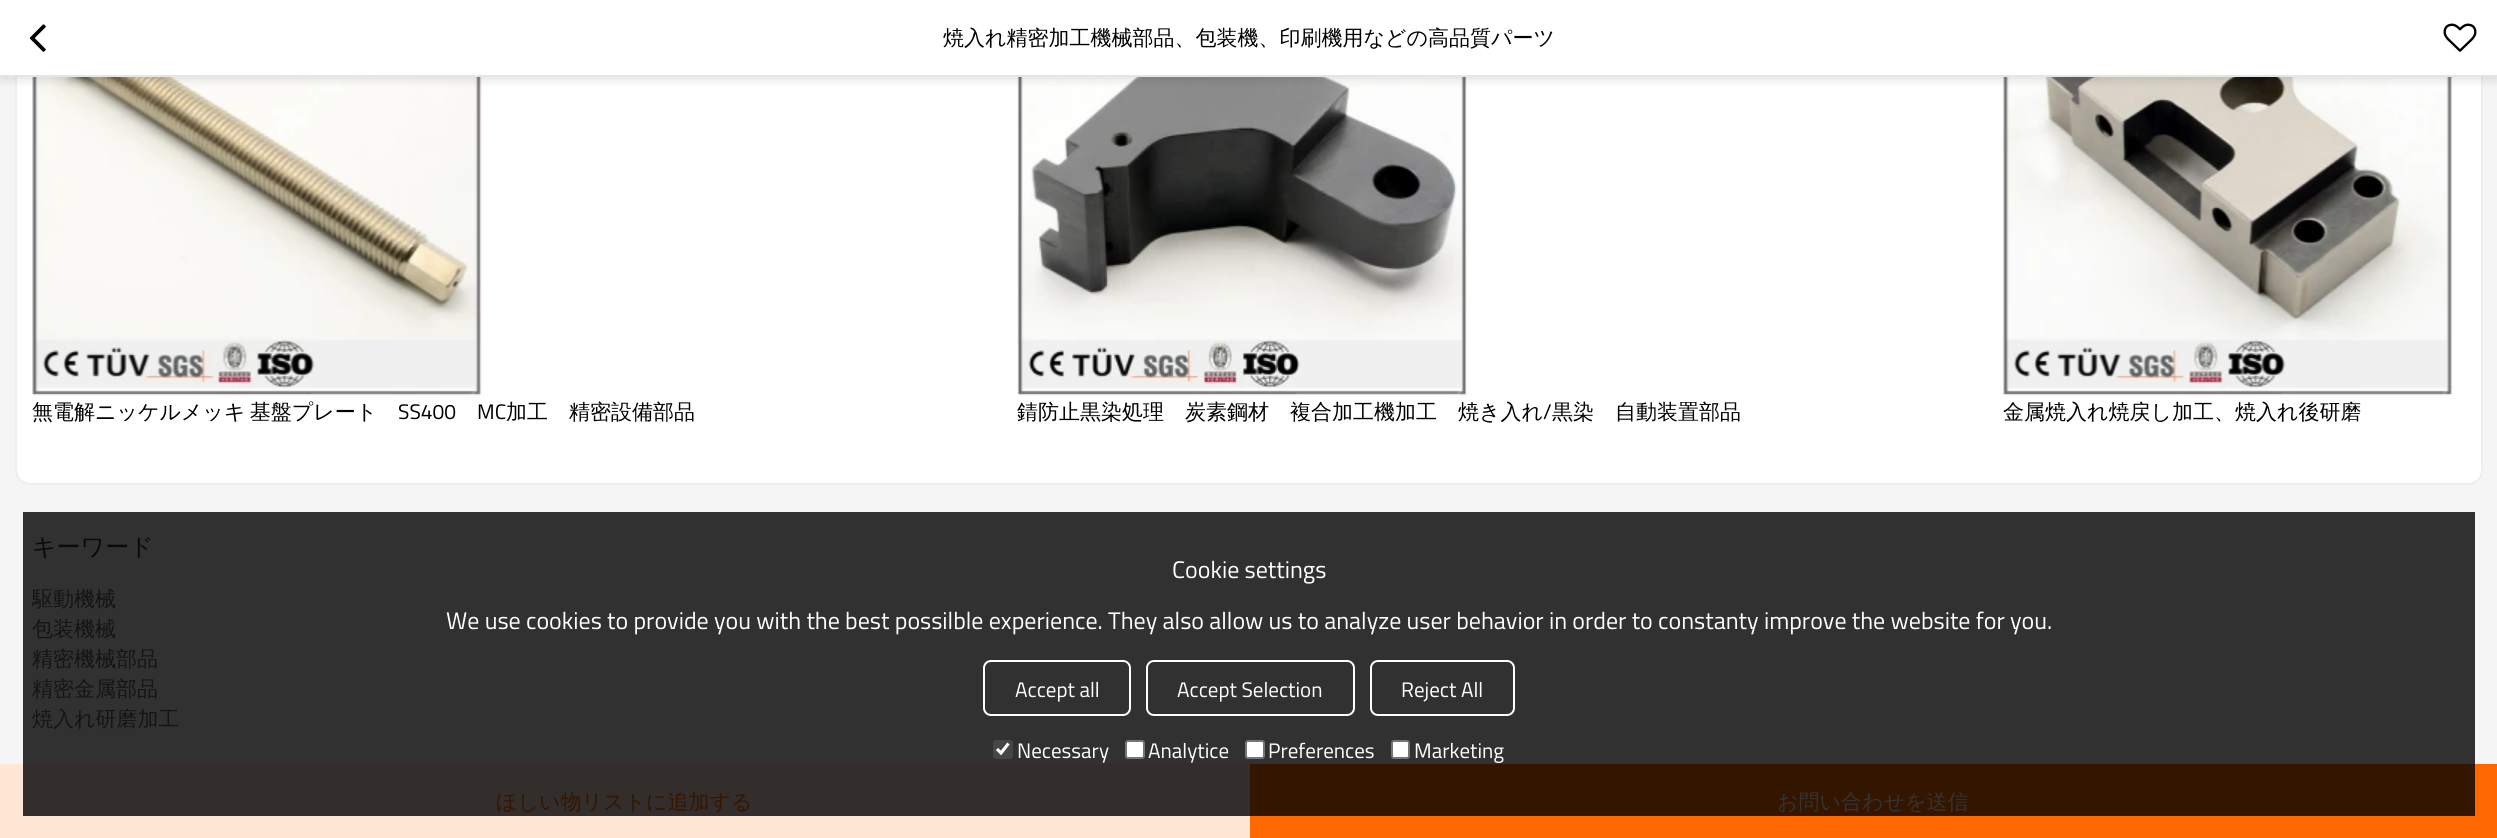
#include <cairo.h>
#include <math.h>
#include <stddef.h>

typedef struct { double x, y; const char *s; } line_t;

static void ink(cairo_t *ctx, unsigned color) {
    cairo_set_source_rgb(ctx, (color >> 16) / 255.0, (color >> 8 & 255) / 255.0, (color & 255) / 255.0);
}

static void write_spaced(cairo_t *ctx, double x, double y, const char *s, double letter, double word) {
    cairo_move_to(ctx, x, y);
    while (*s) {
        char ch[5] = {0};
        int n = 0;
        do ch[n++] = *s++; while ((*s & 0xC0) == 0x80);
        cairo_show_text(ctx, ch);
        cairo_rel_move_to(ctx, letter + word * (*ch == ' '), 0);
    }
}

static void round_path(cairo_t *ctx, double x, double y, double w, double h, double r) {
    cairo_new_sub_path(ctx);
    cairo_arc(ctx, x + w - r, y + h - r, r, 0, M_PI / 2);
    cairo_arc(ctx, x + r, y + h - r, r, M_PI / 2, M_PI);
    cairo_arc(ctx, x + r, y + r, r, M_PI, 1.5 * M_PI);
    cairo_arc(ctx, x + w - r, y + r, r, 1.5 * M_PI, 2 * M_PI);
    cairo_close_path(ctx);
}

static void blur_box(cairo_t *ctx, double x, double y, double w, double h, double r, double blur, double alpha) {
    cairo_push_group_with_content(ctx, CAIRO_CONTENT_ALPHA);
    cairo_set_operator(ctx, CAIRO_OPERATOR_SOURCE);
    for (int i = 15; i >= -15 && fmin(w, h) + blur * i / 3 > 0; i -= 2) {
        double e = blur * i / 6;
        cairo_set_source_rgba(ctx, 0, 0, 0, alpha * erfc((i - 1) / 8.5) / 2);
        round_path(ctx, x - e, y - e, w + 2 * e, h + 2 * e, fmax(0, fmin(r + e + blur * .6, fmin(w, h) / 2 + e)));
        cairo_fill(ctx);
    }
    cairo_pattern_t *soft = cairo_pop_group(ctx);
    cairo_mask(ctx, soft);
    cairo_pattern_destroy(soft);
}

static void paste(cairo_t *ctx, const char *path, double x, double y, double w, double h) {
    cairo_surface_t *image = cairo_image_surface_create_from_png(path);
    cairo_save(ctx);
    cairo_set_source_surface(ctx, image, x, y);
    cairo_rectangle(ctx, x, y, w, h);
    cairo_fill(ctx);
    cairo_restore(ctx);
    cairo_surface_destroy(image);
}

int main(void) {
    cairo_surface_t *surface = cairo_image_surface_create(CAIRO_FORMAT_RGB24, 2497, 838);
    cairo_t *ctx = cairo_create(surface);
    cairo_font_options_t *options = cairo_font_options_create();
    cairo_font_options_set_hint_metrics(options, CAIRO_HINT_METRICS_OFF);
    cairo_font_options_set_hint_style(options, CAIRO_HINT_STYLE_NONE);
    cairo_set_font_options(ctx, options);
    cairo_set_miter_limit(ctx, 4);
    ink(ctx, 0xF5F5F5);
    cairo_paint(ctx);
    ink(ctx, 0x313131);
    cairo_rectangle(ctx, 23, 512, 2452, 252);
    cairo_fill(ctx);
    ink(ctx, 0xFFFFFF);
    round_path(ctx, 16, -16, 2466, 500, 14);
    cairo_fill_preserve(ctx);
    ink(ctx, 0xEEEEEE);
    cairo_stroke(ctx);
    paste(ctx, "media/3.png", 32, 77, 450, 319);
    paste(ctx, "media/4.png", 1017, 77, 450, 319);
    paste(ctx, "media/5.png", 2003, 77, 450, 319);
    ink(ctx, 0x000000);
    blur_box(ctx, 0, 5, 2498, 76, 0, 4, 0.1);
    ink(ctx, 0xFFFFFF);
    cairo_rectangle(ctx, 0, 0, 2497, 75);
    cairo_fill(ctx);
    ink(ctx, 0xE5E5E5);
    cairo_rectangle(ctx, 0, 75, 2497, 2);
    cairo_fill(ctx);
    paste(ctx, "media/1.png", 29, 24, 17, 28);
    cairo_select_font_face(ctx, "WenQuanYi Zen Hei Medium", CAIRO_FONT_SLANT_NORMAL, CAIRO_FONT_WEIGHT_NORMAL);
    cairo_set_font_size(ctx, 21);
    ink(ctx, 0x000000);
    cairo_move_to(ctx, 943, 45);
    cairo_show_text(ctx, "焼入れ精密加工機械部品、包装機、印刷機用などの高品質パーツ");
    paste(ctx, "media/2.png", 2443, 23, 34, 29);
    write_spaced(ctx, 32, 419, "無電解ニッケルメッキ 基盤プレート", 0, -2);
    cairo_select_font_face(ctx, "Titillium Web", CAIRO_FONT_SLANT_NORMAL, CAIRO_FONT_WEIGHT_NORMAL);
    cairo_move_to(ctx, 398, 419);
    cairo_show_text(ctx, "SS400");
    cairo_move_to(ctx, 477, 419);
    cairo_show_text(ctx, "MC");
    cairo_select_font_face(ctx, "WenQuanYi Zen Hei Medium", CAIRO_FONT_SLANT_NORMAL, CAIRO_FONT_WEIGHT_NORMAL);
    cairo_move_to(ctx, 506, 419);
    cairo_show_text(ctx, "加工　精密設備部品");
    cairo_move_to(ctx, 1017, 419);
    cairo_show_text(ctx, "錆防止黒染処理　炭素鋼材　複合加工機加工　焼き入れ");
    cairo_select_font_face(ctx, "Titillium Web", CAIRO_FONT_SLANT_NORMAL, CAIRO_FONT_WEIGHT_NORMAL);
    cairo_move_to(ctx, 1543, 419);
    cairo_show_text(ctx, "/");
    cairo_select_font_face(ctx, "WenQuanYi Zen Hei Medium", CAIRO_FONT_SLANT_NORMAL, CAIRO_FONT_WEIGHT_NORMAL);
    cairo_move_to(ctx, 1552, 419);
    cairo_show_text(ctx, "黒染　自動装置部品");
    cairo_move_to(ctx, 2003, 419);
    cairo_show_text(ctx, "金属焼入れ焼戻し加工、焼入れ後研磨");
    cairo_set_font_size(ctx, 24);
    ink(ctx, 0x0A0A0A);
    cairo_move_to(ctx, 32, 555);
    cairo_show_text(ctx, "キーワード");
    cairo_save(ctx);
    cairo_rectangle(ctx, 32, 584, 2434, 30);
    cairo_clip(ctx);
    cairo_set_font_size(ctx, 21);
    ink(ctx, 0x141414);
    cairo_move_to(ctx, 32, 606);
    cairo_show_text(ctx, "駆動機械");
    cairo_restore(ctx);
    cairo_set_font_size(ctx, 21);
    ink(ctx, 0x141414);
    {
        static const line_t items[] = {
            {32, 636, "包装機械"},
            {32, 666, "精密機械部品"},
            {32, 696, "精密金属部品"},
            {32, 726, "焼入れ研磨加工"},
        };
        for (size_t i = 0; i < sizeof items / sizeof *items; i++) {
            cairo_move_to(ctx, items[i].x, items[i].y);
            cairo_show_text(ctx, items[i].s);
        }
    }
    ink(ctx, 0xFFE7D6);
    cairo_rectangle(ctx, 0, 764, 1250, 74);
    cairo_fill(ctx);
    ink(ctx, 0x332E2B);
    cairo_rectangle(ctx, 23, 764, 1227, 52);
    cairo_fill(ctx);
    ink(ctx, 0x331500);
    cairo_move_to(ctx, 496, 809);
    cairo_show_text(ctx, "ほしい物リストに追加する");
    ink(ctx, 0xFF6700);
    cairo_rectangle(ctx, 1250, 764, 1247, 74);
    cairo_fill(ctx);
    ink(ctx, 0x331500);
    cairo_rectangle(ctx, 1250, 764, 1225, 52);
    cairo_fill(ctx);
    ink(ctx, 0x333333);
    cairo_move_to(ctx, 1777, 809);
    cairo_show_text(ctx, "お問い合わせを送信");
    cairo_select_font_face(ctx, "Titillium Web", CAIRO_FONT_SLANT_NORMAL, CAIRO_FONT_WEIGHT_NORMAL);
    cairo_set_font_size(ctx, 24);
    ink(ctx, 0xFFFFFF);
    cairo_move_to(ctx, 1172, 578);
    cairo_show_text(ctx, "Cookie settings");
    cairo_move_to(ctx, 446, 629);
    cairo_show_text(ctx, "We use cookies to provide you with the best possilble experience. They also allow us to analyze user behavior in order to constanty improve the website for you.");
    round_path(ctx, 984, 661, 146, 54, 7);
    cairo_stroke(ctx);
    cairo_set_font_size(ctx, 21);
    cairo_move_to(ctx, 1015, 697);
    cairo_show_text(ctx, "Accept all");
    round_path(ctx, 1147, 661, 207, 54, 7);
    cairo_stroke(ctx);
    cairo_move_to(ctx, 1177, 697);
    cairo_show_text(ctx, "Accept Selection");
    round_path(ctx, 1371, 661, 143, 54, 7);
    cairo_stroke(ctx);
    cairo_move_to(ctx, 1401, 697);
    cairo_show_text(ctx, "Reject All");
    ink(ctx, 0x464646);
    round_path(ctx, 993, 740, 20, 19, 3);
    cairo_fill(ctx);
    cairo_new_path(ctx);
    cairo_move_to(ctx, 997, 749);
    cairo_line_to(ctx, 1001, 753);
    cairo_line_to(ctx, 1008.5, 743.5);
    ink(ctx, 0xFFFFFF);
    cairo_set_line_width(ctx, 3.1);
    cairo_stroke(ctx);
    cairo_move_to(ctx, 1017, 758);
    cairo_show_text(ctx, "Necessary");
    round_path(ctx, 1126, 741, 18, 17, 2);
    cairo_fill_preserve(ctx);
    ink(ctx, 0x767676);
    cairo_set_line_width(ctx, 2);
    cairo_stroke(ctx);
    ink(ctx, 0xFFFFFF);
    cairo_move_to(ctx, 1148, 758);
    cairo_show_text(ctx, "Analytice");
    round_path(ctx, 1246, 741, 18, 17, 2);
    cairo_fill_preserve(ctx);
    ink(ctx, 0x767676);
    cairo_stroke(ctx);
    ink(ctx, 0xFFFFFF);
    cairo_move_to(ctx, 1268, 758);
    cairo_show_text(ctx, "Preferences");
    round_path(ctx, 1392, 741, 17, 17, 2);
    cairo_fill_preserve(ctx);
    ink(ctx, 0x767676);
    cairo_stroke(ctx);
    ink(ctx, 0xFFFFFF);
    cairo_move_to(ctx, 1414, 758);
    cairo_show_text(ctx, "Marketing");
    cairo_surface_write_to_png(surface, "image.png");
    cairo_font_options_destroy(options);
    cairo_destroy(ctx);
    cairo_surface_destroy(surface);
    return 0;
}
